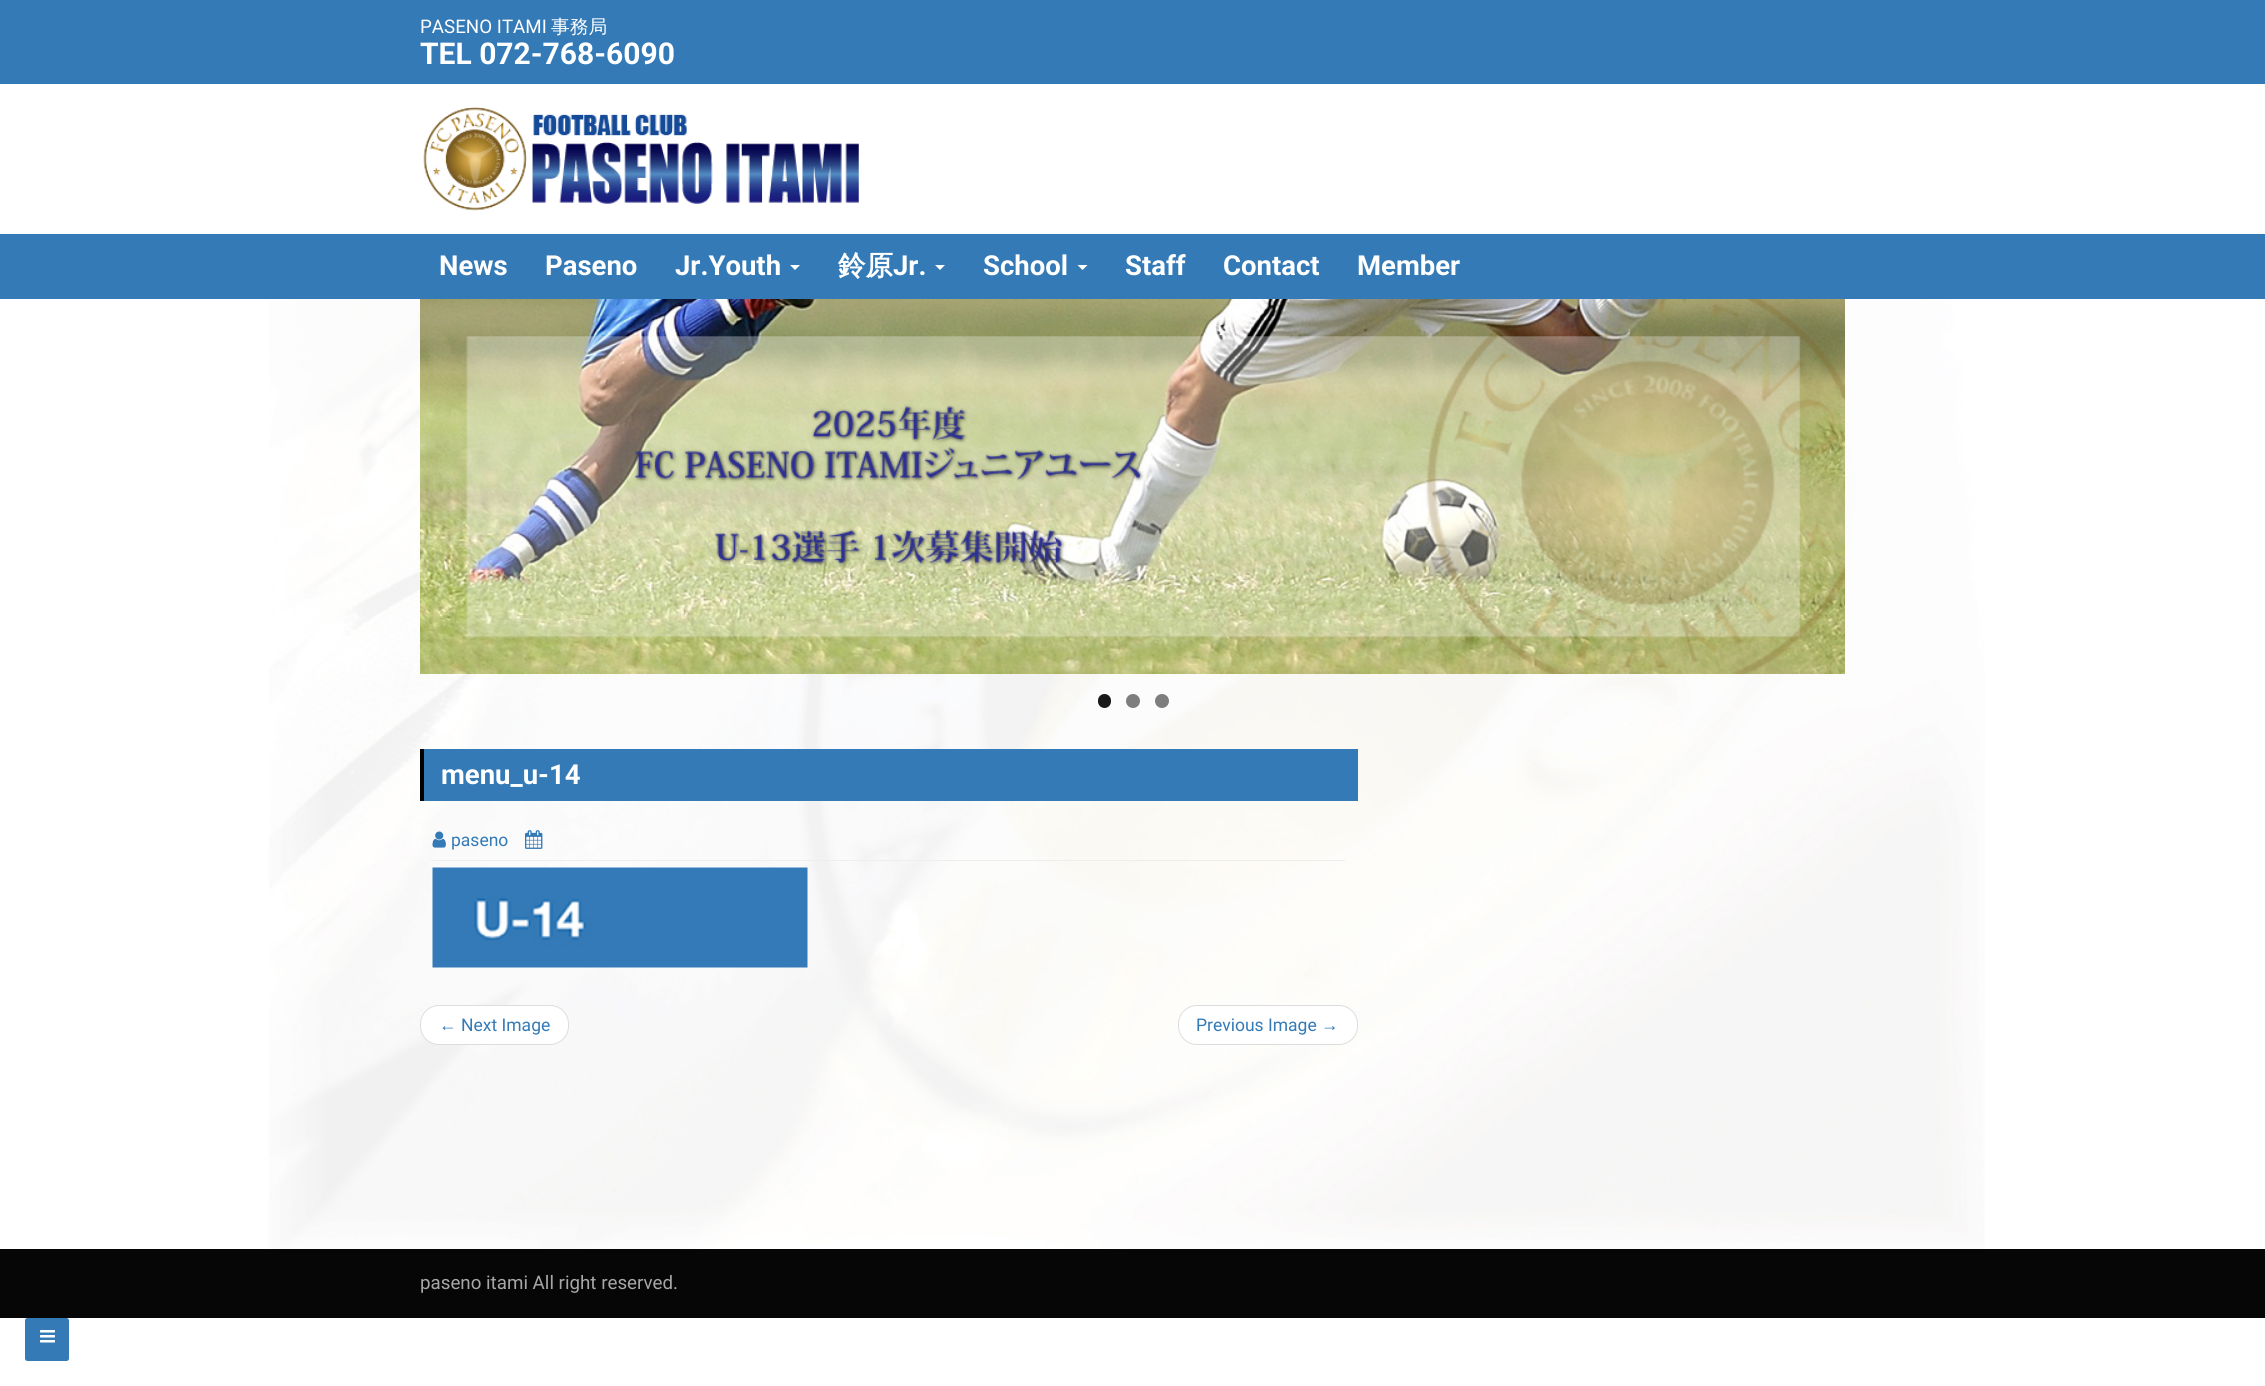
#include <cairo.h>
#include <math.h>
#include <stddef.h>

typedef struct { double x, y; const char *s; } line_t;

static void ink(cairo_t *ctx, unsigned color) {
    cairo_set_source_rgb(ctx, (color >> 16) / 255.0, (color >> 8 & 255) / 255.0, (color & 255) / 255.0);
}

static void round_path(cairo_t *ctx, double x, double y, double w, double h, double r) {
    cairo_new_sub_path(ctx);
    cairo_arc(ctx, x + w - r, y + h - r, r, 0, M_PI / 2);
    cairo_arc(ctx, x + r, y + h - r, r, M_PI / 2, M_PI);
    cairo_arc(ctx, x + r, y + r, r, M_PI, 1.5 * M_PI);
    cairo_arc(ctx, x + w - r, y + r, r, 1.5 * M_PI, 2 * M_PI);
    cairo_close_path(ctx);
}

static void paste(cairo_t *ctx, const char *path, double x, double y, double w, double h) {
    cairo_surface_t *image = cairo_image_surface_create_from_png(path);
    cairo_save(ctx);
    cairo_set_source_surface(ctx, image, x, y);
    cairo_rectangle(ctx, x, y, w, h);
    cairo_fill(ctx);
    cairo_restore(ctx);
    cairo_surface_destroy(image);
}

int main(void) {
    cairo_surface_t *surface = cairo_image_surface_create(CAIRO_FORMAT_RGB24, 2265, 1386);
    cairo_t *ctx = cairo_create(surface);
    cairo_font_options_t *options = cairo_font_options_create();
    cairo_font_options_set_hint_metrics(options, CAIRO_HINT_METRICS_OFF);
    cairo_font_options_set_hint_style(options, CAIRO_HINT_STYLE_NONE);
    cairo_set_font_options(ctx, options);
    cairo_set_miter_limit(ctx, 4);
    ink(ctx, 0xFFFFFF);
    cairo_paint(ctx);
    paste(ctx, "media/1.png", 269, 299, 1716, 950);
    ink(ctx, 0x337AB7);
    cairo_rectangle(ctx, 0, 0, 2265, 84);
    cairo_fill(ctx);
    cairo_select_font_face(ctx, "Roboto", CAIRO_FONT_SLANT_NORMAL, CAIRO_FONT_WEIGHT_NORMAL);
    cairo_set_font_size(ctx, 18.75);
    ink(ctx, 0xFFFFFF);
    cairo_move_to(ctx, 420, 33);
    cairo_show_text(ctx, "PASENO ITAMI");
    cairo_select_font_face(ctx, "WenQuanYi Zen Hei Medium", CAIRO_FONT_SLANT_NORMAL, CAIRO_FONT_WEIGHT_NORMAL);
    cairo_move_to(ctx, 551, 33);
    cairo_show_text(ctx, "事務局");
    cairo_select_font_face(ctx, "Roboto", CAIRO_FONT_SLANT_NORMAL, CAIRO_FONT_WEIGHT_BOLD);
    cairo_set_font_size(ctx, 30);
    cairo_move_to(ctx, 420, 64);
    cairo_show_text(ctx, "TEL 072-768-6090");
    paste(ctx, "media/2.png", 423, 107, 436, 104);
    ink(ctx, 0x337AB7);
    cairo_rectangle(ctx, 0, 234, 2265, 65);
    cairo_fill(ctx);
    cairo_set_font_size(ctx, 27.5);
    ink(ctx, 0xFFFFFF);
    {
        static const line_t items[] = {
            {439, 275, "News"},
            {545, 275, "Paseno"},
            {675, 275, "Jr.Youth"},
        };
        for (size_t i = 0; i < sizeof items / sizeof *items; i++) {
            cairo_move_to(ctx, items[i].x, items[i].y);
            cairo_show_text(ctx, items[i].s);
        }
    }
    cairo_new_path(ctx);
    cairo_move_to(ctx, 790, 265);
    cairo_line_to(ctx, 800, 265);
    cairo_line_to(ctx, 795, 270);
    cairo_close_path(ctx);
    cairo_fill(ctx);
    cairo_select_font_face(ctx, "WenQuanYi Zen Hei", CAIRO_FONT_SLANT_NORMAL, CAIRO_FONT_WEIGHT_BOLD);
    cairo_move_to(ctx, 838, 275);
    cairo_show_text(ctx, "鈴原");
    cairo_select_font_face(ctx, "Roboto", CAIRO_FONT_SLANT_NORMAL, CAIRO_FONT_WEIGHT_BOLD);
    cairo_move_to(ctx, 893, 275);
    cairo_show_text(ctx, "Jr.");
    cairo_new_path(ctx);
    cairo_move_to(ctx, 935, 265);
    cairo_line_to(ctx, 945, 265);
    cairo_line_to(ctx, 940, 270);
    cairo_close_path(ctx);
    cairo_fill(ctx);
    cairo_move_to(ctx, 983, 275);
    cairo_show_text(ctx, "School");
    cairo_new_path(ctx);
    cairo_move_to(ctx, 1077.5, 265);
    cairo_line_to(ctx, 1087.5, 265);
    cairo_line_to(ctx, 1082.5, 270);
    cairo_close_path(ctx);
    cairo_fill(ctx);
    {
        static const line_t items[] = {
            {1125, 275, "Staff"},
            {1223, 275, "Contact"},
            {1357, 275, "Member"},
        };
        for (size_t i = 0; i < sizeof items / sizeof *items; i++) {
            cairo_move_to(ctx, items[i].x, items[i].y);
            cairo_show_text(ctx, items[i].s);
        }
    }
    paste(ctx, "media/3.png", 420, 299, 1425, 375);
    ink(ctx, 0x191919);
    round_path(ctx, 1098, 694, 13, 14, 6.5);
    cairo_fill(ctx);
    ink(ctx, 0x7E7E7E);
    cairo_arc(ctx, 1133, 701, 7, 0, 2 * M_PI);
    cairo_fill(ctx);
    cairo_arc(ctx, 1162, 701, 7, 0, 2 * M_PI);
    cairo_fill(ctx);
    ink(ctx, 0x337AB7);
    cairo_rectangle(ctx, 424, 749, 934, 52);
    cairo_fill(ctx);
    ink(ctx, 0x000000);
    cairo_rectangle(ctx, 420, 749, 4, 52);
    cairo_fill(ctx);
    ink(ctx, 0xFFFFFF);
    cairo_move_to(ctx, 441, 784);
    cairo_show_text(ctx, "menu_u-14");
    paste(ctx, "media/4.png", 432, 831, 14, 17);
    cairo_select_font_face(ctx, "Roboto", CAIRO_FONT_SLANT_NORMAL, CAIRO_FONT_WEIGHT_NORMAL);
    cairo_set_font_size(ctx, 17.5);
    ink(ctx, 0x337AB7);
    cairo_move_to(ctx, 451, 846);
    cairo_show_text(ctx, "paseno");
    paste(ctx, "media/5.png", 525, 830, 18, 19);
    ink(ctx, 0xEEEEEE);
    cairo_rectangle(ctx, 433, 860, 912, 1);
    cairo_fill(ctx);
    paste(ctx, "media/6.png", 432, 867, 376, 101);
    ink(ctx, 0xFFFFFF);
    round_path(ctx, 420.5, 1005.5, 148, 39, 18.5);
    cairo_fill_preserve(ctx);
    ink(ctx, 0xDDDDDD);
    cairo_set_line_width(ctx, 1);
    cairo_stroke(ctx);
    cairo_select_font_face(ctx, "Liberation Sans", CAIRO_FONT_SLANT_NORMAL, CAIRO_FONT_WEIGHT_NORMAL);
    ink(ctx, 0x337AB7);
    cairo_move_to(ctx, 439, 1031);
    cairo_show_text(ctx, "←");
    cairo_select_font_face(ctx, "Roboto", CAIRO_FONT_SLANT_NORMAL, CAIRO_FONT_WEIGHT_NORMAL);
    cairo_move_to(ctx, 461, 1031);
    cairo_show_text(ctx, "Next Image");
    ink(ctx, 0xFFFFFF);
    round_path(ctx, 1178.5, 1005.5, 179, 39, 18.5);
    cairo_fill_preserve(ctx);
    ink(ctx, 0xDDDDDD);
    cairo_stroke(ctx);
    ink(ctx, 0x337AB7);
    cairo_move_to(ctx, 1196, 1031);
    cairo_show_text(ctx, "Previous Image");
    cairo_select_font_face(ctx, "Liberation Sans", CAIRO_FONT_SLANT_NORMAL, CAIRO_FONT_WEIGHT_NORMAL);
    cairo_move_to(ctx, 1321, 1031);
    cairo_show_text(ctx, "→");
    ink(ctx, 0x060606);
    cairo_rectangle(ctx, 0, 1249, 2265, 69);
    cairo_fill(ctx);
    cairo_select_font_face(ctx, "Roboto", CAIRO_FONT_SLANT_NORMAL, CAIRO_FONT_WEIGHT_NORMAL);
    cairo_set_font_size(ctx, 18.75);
    ink(ctx, 0xA7A7A7);
    cairo_move_to(ctx, 420, 1289);
    cairo_show_text(ctx, "paseno itami All right reserved.");
    ink(ctx, 0x337AB7);
    round_path(ctx, 25, 1318, 44, 43, 2.5);
    cairo_fill(ctx);
    paste(ctx, "media/7.png", 40, 1330, 15, 13);
    cairo_surface_write_to_png(surface, "image.png");
    cairo_font_options_destroy(options);
    cairo_destroy(ctx);
    cairo_surface_destroy(surface);
    return 0;
}
